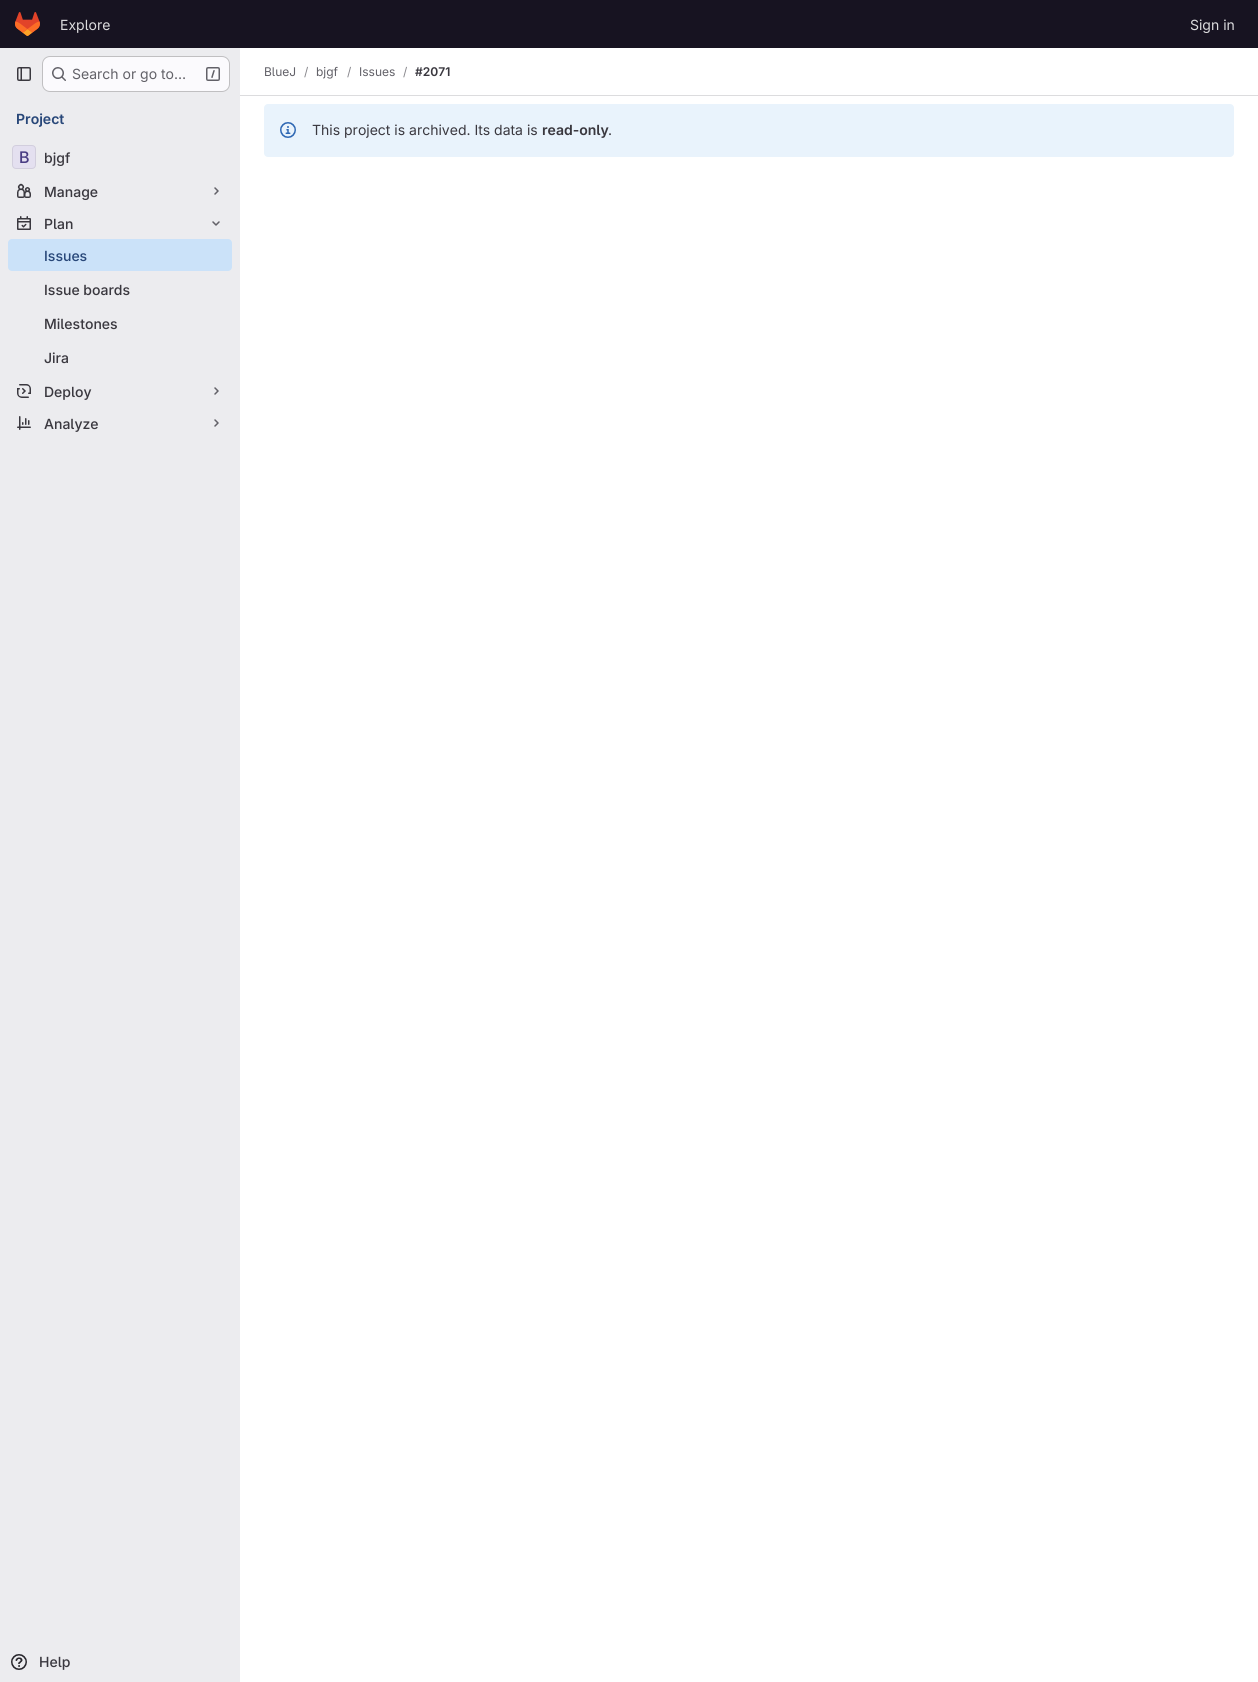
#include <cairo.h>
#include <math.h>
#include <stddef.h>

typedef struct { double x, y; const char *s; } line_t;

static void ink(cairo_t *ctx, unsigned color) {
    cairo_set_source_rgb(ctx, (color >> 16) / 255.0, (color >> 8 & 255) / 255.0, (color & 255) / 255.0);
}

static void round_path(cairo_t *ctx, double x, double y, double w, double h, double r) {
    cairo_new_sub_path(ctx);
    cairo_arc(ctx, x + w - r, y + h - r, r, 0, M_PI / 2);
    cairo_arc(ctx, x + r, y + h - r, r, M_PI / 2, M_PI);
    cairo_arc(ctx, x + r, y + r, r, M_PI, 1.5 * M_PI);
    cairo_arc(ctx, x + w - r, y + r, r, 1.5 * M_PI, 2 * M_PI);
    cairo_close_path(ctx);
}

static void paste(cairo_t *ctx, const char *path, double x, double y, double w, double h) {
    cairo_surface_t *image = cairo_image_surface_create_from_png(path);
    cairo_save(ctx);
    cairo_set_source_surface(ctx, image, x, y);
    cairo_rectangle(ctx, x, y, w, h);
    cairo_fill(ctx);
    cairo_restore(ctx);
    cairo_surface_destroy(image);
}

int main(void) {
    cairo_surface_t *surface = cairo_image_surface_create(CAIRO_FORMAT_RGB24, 1258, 1682);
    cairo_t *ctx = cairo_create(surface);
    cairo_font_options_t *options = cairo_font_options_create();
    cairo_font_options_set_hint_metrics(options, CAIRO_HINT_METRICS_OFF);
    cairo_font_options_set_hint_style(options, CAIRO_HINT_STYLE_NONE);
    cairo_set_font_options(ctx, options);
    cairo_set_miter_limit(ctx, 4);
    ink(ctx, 0xFFFFFF);
    cairo_paint(ctx);
    ink(ctx, 0x171321);
    cairo_rectangle(ctx, 0, 0, 1258, 48);
    cairo_fill(ctx);
    paste(ctx, "media/1.png", 15, 12, 25, 24);
    cairo_select_font_face(ctx, "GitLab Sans", CAIRO_FONT_SLANT_NORMAL, CAIRO_FONT_WEIGHT_NORMAL);
    cairo_set_font_size(ctx, 14);
    ink(ctx, 0xDCDCDE);
    cairo_move_to(ctx, 60, 30);
    cairo_show_text(ctx, "Explore");
    cairo_move_to(ctx, 1190, 30);
    cairo_show_text(ctx, "Sign in");
    ink(ctx, 0xECECEF);
    cairo_rectangle(ctx, 0, 48, 240, 1634);
    cairo_fill(ctx);
    paste(ctx, "media/2.png", 17, 67, 14, 14);
    ink(ctx, 0xFBFAFD);
    round_path(ctx, 42, 56, 188, 36, 8);
    cairo_fill(ctx);
    round_path(ctx, 42.5, 56.5, 187, 35, 7.5);
    cairo_set_source_rgba(ctx, 0.02, 0.02, 0.024, 0.24);
    cairo_set_line_width(ctx, 1);
    cairo_stroke(ctx);
    paste(ctx, "media/3.png", 52, 67, 14, 14);
    ink(ctx, 0x626168);
    cairo_move_to(ctx, 72, 79);
    cairo_show_text(ctx, "Search or go to…");
    paste(ctx, "media/4.png", 206, 67, 14, 14);
    cairo_select_font_face(ctx, "GitLab Sans SemiBold", CAIRO_FONT_SLANT_NORMAL, CAIRO_FONT_WEIGHT_NORMAL);
    ink(ctx, 0x284779);
    cairo_move_to(ctx, 16, 124);
    cairo_show_text(ctx, "Project");
    ink(ctx, 0xE4E0F0);
    round_path(ctx, 12, 145, 24, 24, 4);
    cairo_fill(ctx);
    round_path(ctx, 12.5, 145.5, 23, 23, 3.5);
    cairo_set_source_rgba(ctx, 0.02, 0.02, 0.024, 0.08);
    cairo_stroke(ctx);
    cairo_select_font_face(ctx, "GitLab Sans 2 Medium", CAIRO_FONT_SLANT_NORMAL, CAIRO_FONT_WEIGHT_NORMAL);
    cairo_set_font_size(ctx, 16);
    ink(ctx, 0x493C83);
    cairo_move_to(ctx, 19, 163);
    cairo_show_text(ctx, "B");
    cairo_select_font_face(ctx, "GitLab Sans Medium", CAIRO_FONT_SLANT_NORMAL, CAIRO_FONT_WEIGHT_NORMAL);
    cairo_set_font_size(ctx, 14);
    ink(ctx, 0x3A383F);
    cairo_move_to(ctx, 44, 163);
    cairo_show_text(ctx, "bjgf");
    paste(ctx, "media/5.png", 17, 183, 14, 15);
    cairo_move_to(ctx, 44, 197);
    cairo_show_text(ctx, "Manage");
    cairo_new_path(ctx);
    cairo_move_to(ctx, 215, 188);
    cairo_line_to(ctx, 218, 191);
    cairo_line_to(ctx, 215, 194);
    ink(ctx, 0x626168);
    cairo_set_line_width(ctx, 1.5);
    cairo_set_line_cap(ctx, CAIRO_LINE_CAP_ROUND);
    cairo_set_line_join(ctx, CAIRO_LINE_JOIN_ROUND);
    cairo_stroke(ctx);
    paste(ctx, "media/6.png", 17, 216, 14, 14);
    ink(ctx, 0x3A383F);
    cairo_move_to(ctx, 44, 229);
    cairo_show_text(ctx, "Plan");
    cairo_new_path(ctx);
    cairo_move_to(ctx, 219, 222);
    cairo_line_to(ctx, 216, 225);
    cairo_line_to(ctx, 213, 222);
    ink(ctx, 0x626168);
    cairo_stroke(ctx);
    ink(ctx, 0xCBE2F9);
    round_path(ctx, 8, 239, 224, 32, 4);
    cairo_fill(ctx);
    ink(ctx, 0x284779);
    cairo_move_to(ctx, 44, 261);
    cairo_show_text(ctx, "Issues");
    ink(ctx, 0x3A383F);
    {
        static const line_t items[] = {
            {44, 295, "Issue boards"},
            {44, 329, "Milestones"},
            {44, 363, "Jira"},
        };
        for (size_t i = 0; i < sizeof items / sizeof *items; i++) {
            cairo_move_to(ctx, items[i].x, items[i].y);
            cairo_show_text(ctx, items[i].s);
        }
    }
    paste(ctx, "media/7.png", 17, 384, 14, 14);
    cairo_move_to(ctx, 44, 397);
    cairo_show_text(ctx, "Deploy");
    cairo_new_path(ctx);
    cairo_move_to(ctx, 215, 388);
    cairo_line_to(ctx, 218, 391);
    cairo_line_to(ctx, 215, 394);
    ink(ctx, 0x626168);
    cairo_stroke(ctx);
    paste(ctx, "media/8.png", 17, 416, 14, 14);
    ink(ctx, 0x3A383F);
    cairo_move_to(ctx, 44, 429);
    cairo_show_text(ctx, "Analyze");
    cairo_new_path(ctx);
    cairo_move_to(ctx, 215, 420);
    cairo_line_to(ctx, 218, 423);
    cairo_line_to(ctx, 215, 426);
    ink(ctx, 0x626168);
    cairo_stroke(ctx);
    paste(ctx, "media/9.png", 11, 1654, 16, 16);
    ink(ctx, 0x3A383F);
    cairo_move_to(ctx, 39, 1667);
    cairo_show_text(ctx, "Help");
    ink(ctx, 0xDCDCDE);
    cairo_rectangle(ctx, 240, 95, 1018, 1);
    cairo_fill(ctx);
    cairo_select_font_face(ctx, "GitLab Sans", CAIRO_FONT_SLANT_NORMAL, CAIRO_FONT_WEIGHT_NORMAL);
    cairo_set_font_size(ctx, 12);
    ink(ctx, 0x626168);
    cairo_move_to(ctx, 264, 76);
    cairo_show_text(ctx, "BlueJ");
    ink(ctx, 0x89888D);
    cairo_move_to(ctx, 304, 76);
    cairo_show_text(ctx, "/");
    ink(ctx, 0x626168);
    cairo_move_to(ctx, 316, 76);
    cairo_show_text(ctx, "bjgf");
    ink(ctx, 0x89888D);
    cairo_move_to(ctx, 347, 76);
    cairo_show_text(ctx, "/");
    ink(ctx, 0x626168);
    cairo_move_to(ctx, 359, 76);
    cairo_show_text(ctx, "Issues");
    ink(ctx, 0x89888D);
    cairo_move_to(ctx, 403, 76);
    cairo_show_text(ctx, "/");
    cairo_select_font_face(ctx, "GitLab Sans SemiBold", CAIRO_FONT_SLANT_NORMAL, CAIRO_FONT_WEIGHT_NORMAL);
    ink(ctx, 0x3A383F);
    cairo_move_to(ctx, 415, 76);
    cairo_show_text(ctx, "#2071");
    ink(ctx, 0xE9F3FC);
    round_path(ctx, 264, 104, 970, 53, 4);
    cairo_fill(ctx);
    paste(ctx, "media/10.png", 280, 122, 16, 16);
    cairo_select_font_face(ctx, "GitLab Sans", CAIRO_FONT_SLANT_NORMAL, CAIRO_FONT_WEIGHT_NORMAL);
    cairo_set_font_size(ctx, 14);
    ink(ctx, 0x3A383F);
    cairo_move_to(ctx, 312, 135);
    cairo_show_text(ctx, "This project is archived. Its data is");
    cairo_select_font_face(ctx, "GitLab Sans SemiBold", CAIRO_FONT_SLANT_NORMAL, CAIRO_FONT_WEIGHT_NORMAL);
    cairo_move_to(ctx, 542, 135);
    cairo_show_text(ctx, "read-only");
    cairo_select_font_face(ctx, "GitLab Sans", CAIRO_FONT_SLANT_NORMAL, CAIRO_FONT_WEIGHT_NORMAL);
    cairo_move_to(ctx, 608, 135);
    cairo_show_text(ctx, ".");
    cairo_surface_write_to_png(surface, "image.png");
    cairo_font_options_destroy(options);
    cairo_destroy(ctx);
    cairo_surface_destroy(surface);
    return 0;
}
